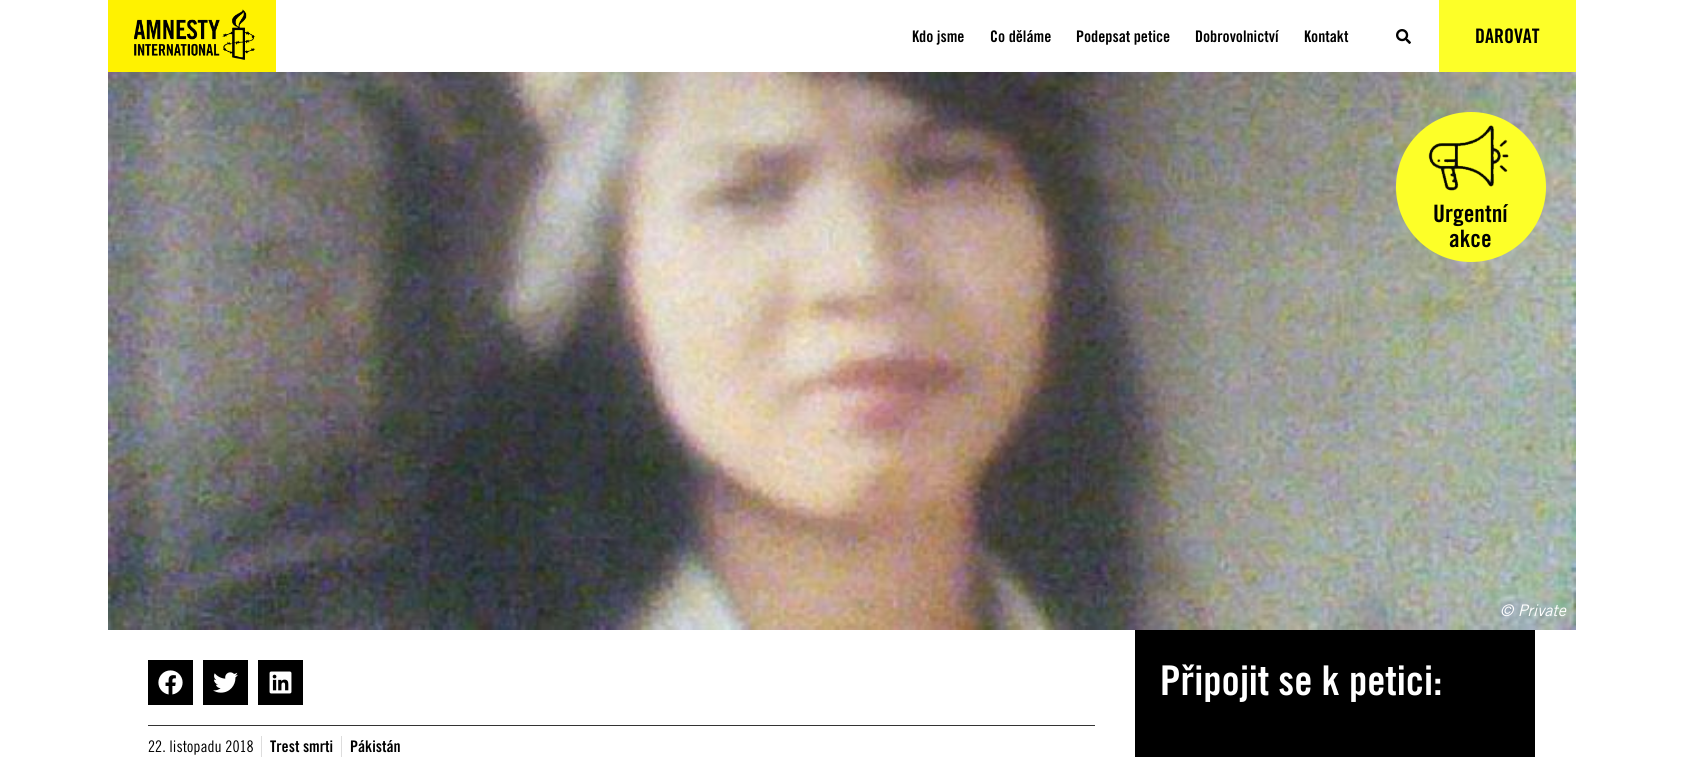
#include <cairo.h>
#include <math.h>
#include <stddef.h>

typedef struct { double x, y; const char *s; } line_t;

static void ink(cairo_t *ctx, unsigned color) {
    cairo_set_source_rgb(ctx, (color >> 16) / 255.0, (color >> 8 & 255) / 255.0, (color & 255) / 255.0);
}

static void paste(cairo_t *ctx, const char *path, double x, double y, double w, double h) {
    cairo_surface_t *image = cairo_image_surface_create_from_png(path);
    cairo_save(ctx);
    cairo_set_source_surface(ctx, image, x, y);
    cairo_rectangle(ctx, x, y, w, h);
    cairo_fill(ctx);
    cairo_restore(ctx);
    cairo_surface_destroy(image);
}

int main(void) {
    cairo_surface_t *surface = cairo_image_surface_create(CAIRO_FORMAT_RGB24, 1683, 757);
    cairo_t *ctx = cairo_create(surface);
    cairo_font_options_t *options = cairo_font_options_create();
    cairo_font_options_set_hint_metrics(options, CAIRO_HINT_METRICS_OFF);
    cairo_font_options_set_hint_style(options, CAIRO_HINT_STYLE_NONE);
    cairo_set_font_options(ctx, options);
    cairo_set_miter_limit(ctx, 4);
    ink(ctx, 0xFFFFFF);
    cairo_paint(ctx);
    paste(ctx, "media/1.png", 108, 0, 168, 72);
    cairo_select_font_face(ctx, "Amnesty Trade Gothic", CAIRO_FONT_SLANT_NORMAL, CAIRO_FONT_WEIGHT_BOLD);
    cairo_set_font_size(ctx, 16);
    ink(ctx, 0x000000);
    {
        static const line_t items[] = {
            {912, 42, "Kdo jsme"},
            {990, 42, "Co děláme"},
            {1076, 42, "Podepsat petice"},
            {1195, 42, "Dobrovolnictví"},
            {1304, 42, "Kontakt"},
        };
        for (size_t i = 0; i < sizeof items / sizeof *items; i++) {
            cairo_move_to(ctx, items[i].x, items[i].y);
            cairo_show_text(ctx, items[i].s);
        }
    }
    paste(ctx, "media/2.png", 1396, 29, 15, 15);
    ink(ctx, 0xFDFF28);
    cairo_rectangle(ctx, 1439, 0, 137, 72);
    cairo_fill(ctx);
    cairo_set_font_size(ctx, 20);
    ink(ctx, 0x000000);
    cairo_move_to(ctx, 1475, 43);
    cairo_show_text(ctx, "DAROVAT");
    paste(ctx, "media/4.png", 108, 72, 1468, 558);
    ink(ctx, 0xFDFF28);
    cairo_arc(ctx, 1471, 187, 75, 0, 2 * M_PI);
    cairo_fill(ctx);
    paste(ctx, "media/3.png", 1428, 125, 81, 66);
    cairo_set_font_size(ctx, 24);
    ink(ctx, 0x000000);
    cairo_move_to(ctx, 1433, 222);
    cairo_show_text(ctx, "Urgentní");
    cairo_move_to(ctx, 1449, 247);
    cairo_show_text(ctx, "akce");
    cairo_select_font_face(ctx, "Amnesty Trade Gothic", CAIRO_FONT_SLANT_ITALIC, CAIRO_FONT_WEIGHT_NORMAL);
    cairo_set_font_size(ctx, 16);
    ink(ctx, 0xFFFFFF);
    cairo_move_to(ctx, 1500, 616);
    cairo_show_text(ctx, "© Private");
    ink(ctx, 0x000000);
    cairo_rectangle(ctx, 1135, 630, 400, 127);
    cairo_fill(ctx);
    cairo_select_font_face(ctx, "Amnesty Trade Gothic", CAIRO_FONT_SLANT_NORMAL, CAIRO_FONT_WEIGHT_BOLD);
    cairo_set_font_size(ctx, 41);
    ink(ctx, 0xFFFFFF);
    cairo_move_to(ctx, 1160, 695);
    cairo_show_text(ctx, "Připojit se k petici:");
    ink(ctx, 0x000000);
    cairo_rectangle(ctx, 148, 660, 45, 45);
    cairo_fill(ctx);
    paste(ctx, "media/5.png", 158, 670, 25, 25);
    cairo_rectangle(ctx, 203, 660, 45, 45);
    cairo_fill(ctx);
    paste(ctx, "media/6.png", 213, 672, 25, 21);
    cairo_rectangle(ctx, 258, 660, 45, 45);
    cairo_fill(ctx);
    paste(ctx, "media/7.png", 269, 671, 23, 23);
    ink(ctx, 0x333333);
    cairo_rectangle(ctx, 148, 725, 947, 1);
    cairo_fill(ctx);
    cairo_select_font_face(ctx, "Amnesty Trade Gothic", CAIRO_FONT_SLANT_NORMAL, CAIRO_FONT_WEIGHT_NORMAL);
    cairo_set_font_size(ctx, 16);
    ink(ctx, 0x000000);
    cairo_move_to(ctx, 148, 752);
    cairo_show_text(ctx, "22. listopadu 2018");
    ink(ctx, 0xDDDDDD);
    cairo_rectangle(ctx, 261, 736, 1, 21);
    cairo_fill(ctx);
    cairo_select_font_face(ctx, "Amnesty Trade Gothic", CAIRO_FONT_SLANT_NORMAL, CAIRO_FONT_WEIGHT_BOLD);
    ink(ctx, 0x000000);
    cairo_move_to(ctx, 270, 752);
    cairo_show_text(ctx, "Trest smrti");
    ink(ctx, 0xDDDDDD);
    cairo_rectangle(ctx, 341, 736, 1, 21);
    cairo_fill(ctx);
    ink(ctx, 0x000000);
    cairo_move_to(ctx, 350, 752);
    cairo_show_text(ctx, "Pákistán");
    cairo_surface_write_to_png(surface, "image.png");
    cairo_font_options_destroy(options);
    cairo_destroy(ctx);
    cairo_surface_destroy(surface);
    return 0;
}
